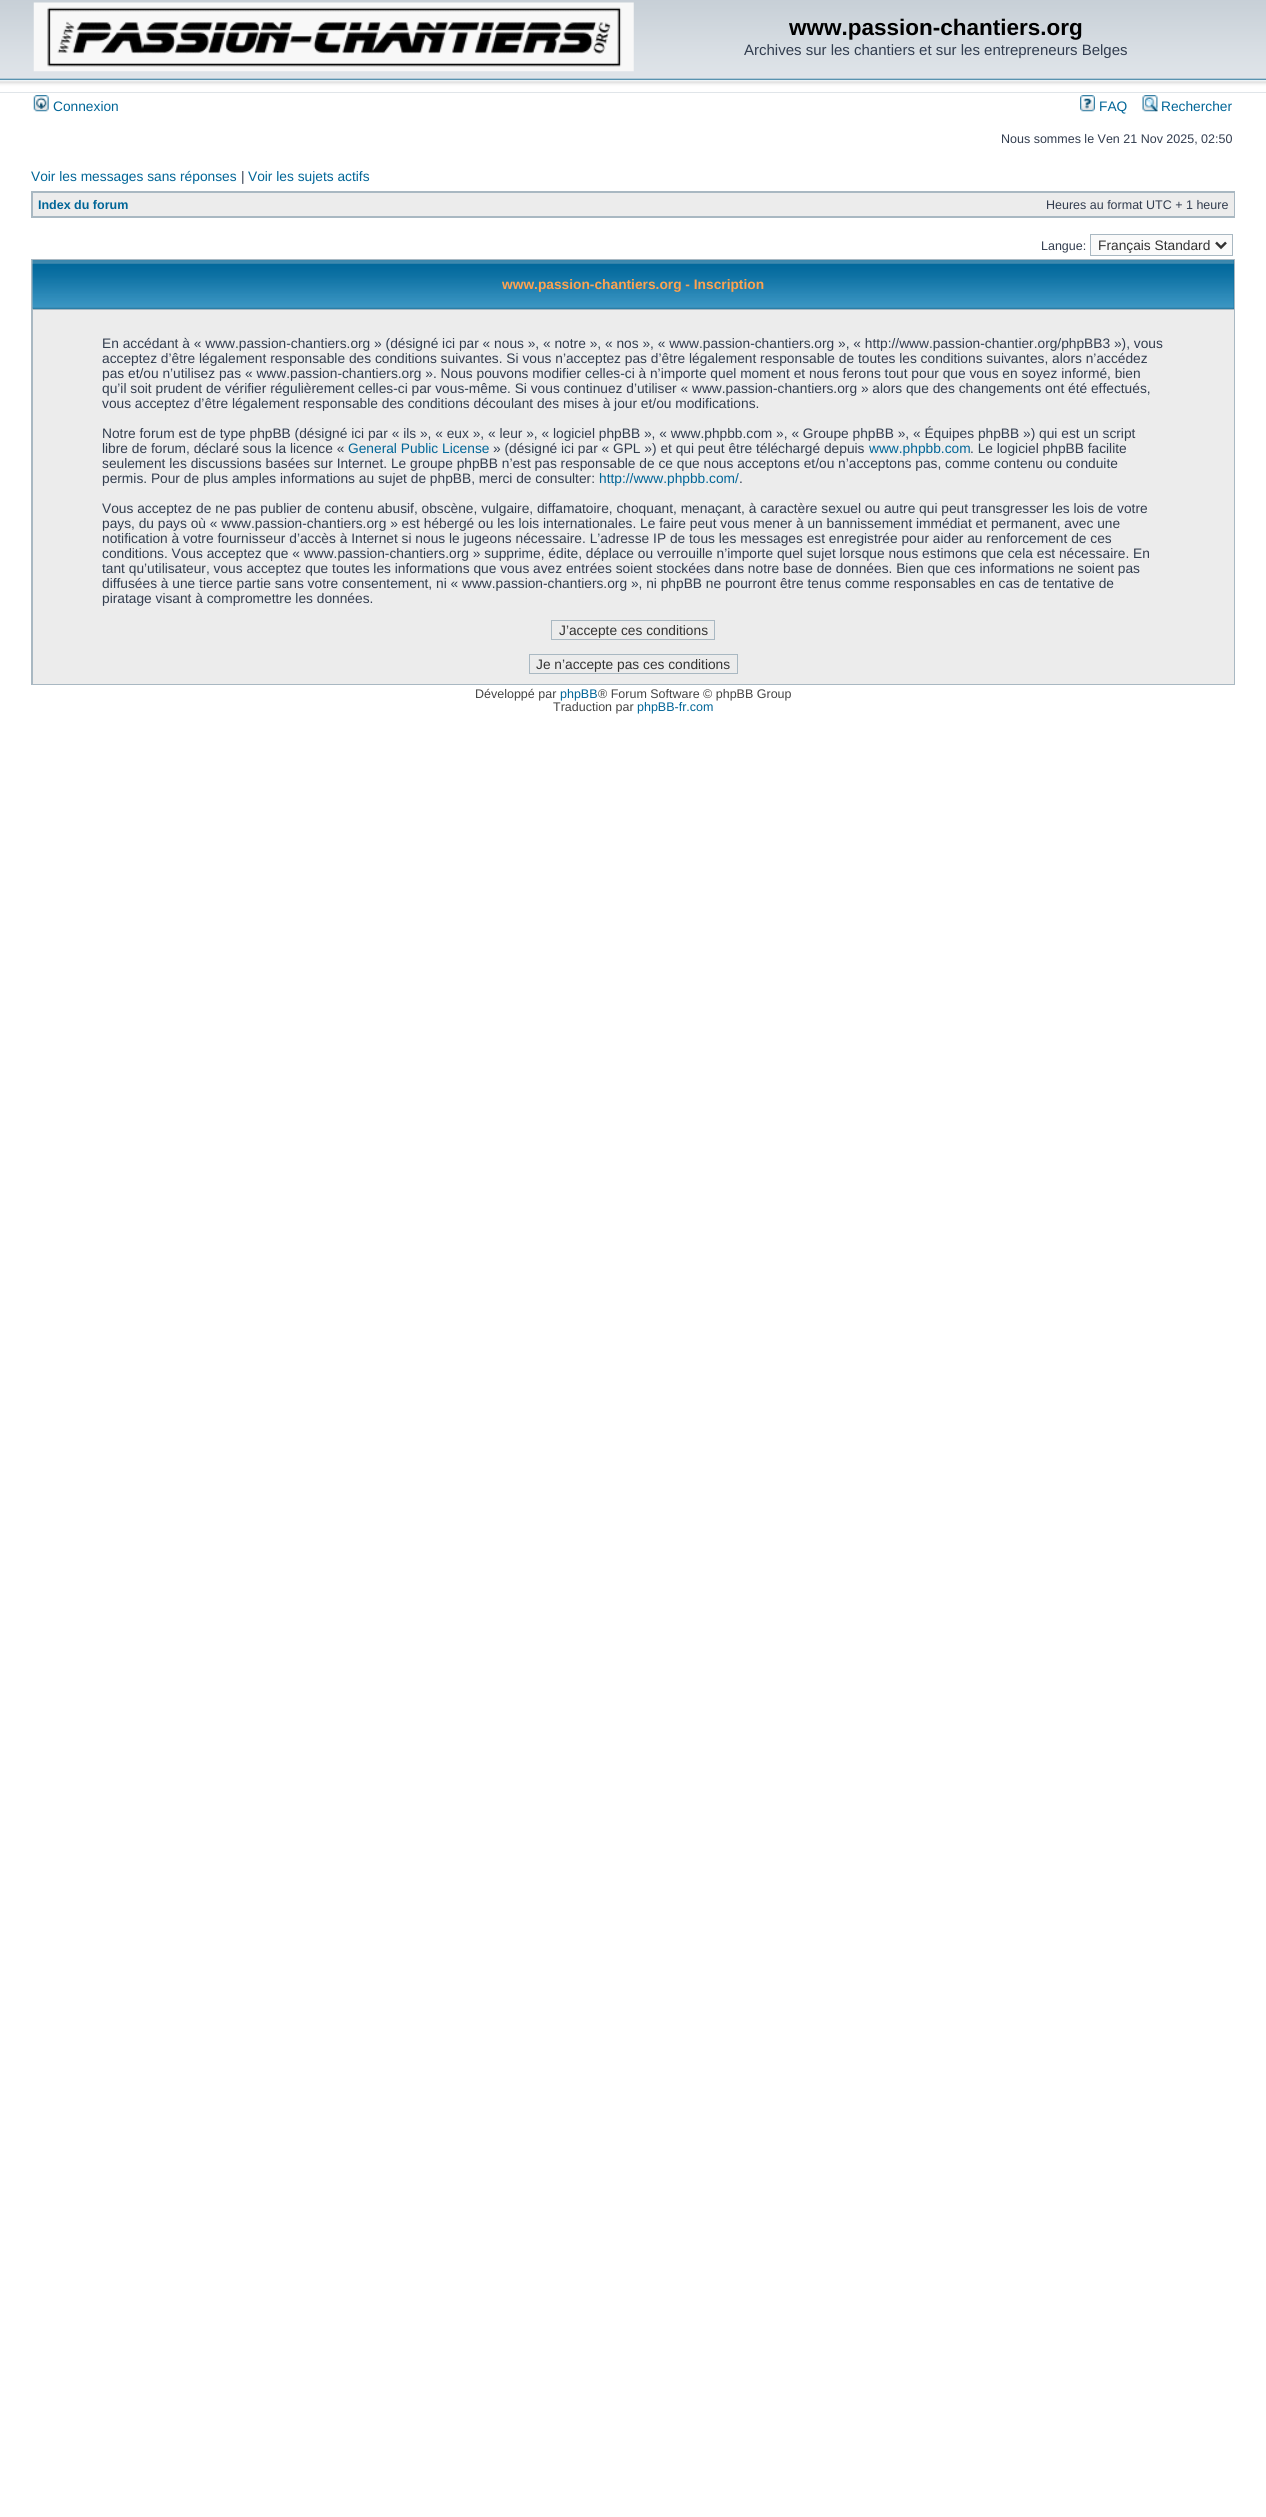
#include <cairo.h>
#include <math.h>
#include <stddef.h>

typedef struct { double x, y; const char *s; } line_t;

static void ink(cairo_t *ctx, unsigned color) {
    cairo_set_source_rgb(ctx, (color >> 16) / 255.0, (color >> 8 & 255) / 255.0, (color & 255) / 255.0);
}

static void paste(cairo_t *ctx, const char *path, double x, double y, double w, double h) {
    cairo_surface_t *image = cairo_image_surface_create_from_png(path);
    cairo_save(ctx);
    cairo_set_source_surface(ctx, image, x, y);
    cairo_rectangle(ctx, x, y, w, h);
    cairo_fill(ctx);
    cairo_restore(ctx);
    cairo_surface_destroy(image);
}

int main(void) {
    cairo_surface_t *surface = cairo_image_surface_create(CAIRO_FORMAT_RGB24, 1266, 2517);
    cairo_t *ctx = cairo_create(surface);
    cairo_font_options_t *options = cairo_font_options_create();
    cairo_font_options_set_hint_metrics(options, CAIRO_HINT_METRICS_OFF);
    cairo_font_options_set_hint_style(options, CAIRO_HINT_STYLE_NONE);
    cairo_set_font_options(ctx, options);
    cairo_set_miter_limit(ctx, 4);
    ink(ctx, 0xFFFFFF);
    cairo_paint(ctx);
    ink(ctx, 0xC1CAD2);
    cairo_rectangle(ctx, 0, 92, 1266, 1);
    cairo_fill(ctx);
    paste(ctx, "media/1.png", 0, 0, 1266, 93);
    paste(ctx, "media/2.png", 33, 2, 601, 70);
    cairo_select_font_face(ctx, "Liberation Sans", CAIRO_FONT_SLANT_NORMAL, CAIRO_FONT_WEIGHT_BOLD);
    cairo_set_font_size(ctx, 22.5);
    ink(ctx, 0x000000);
    cairo_move_to(ctx, 789, 35);
    cairo_show_text(ctx, "www.passion-chantiers.org");
    cairo_select_font_face(ctx, "Liberation Sans", CAIRO_FONT_SLANT_NORMAL, CAIRO_FONT_WEIGHT_NORMAL);
    cairo_set_font_size(ctx, 15);
    ink(ctx, 0x323D4F);
    cairo_move_to(ctx, 744, 55);
    cairo_show_text(ctx, "Archives sur les chantiers et sur les entrepreneurs Belges");
    paste(ctx, "media/3.png", 33, 95, 16, 17);
    cairo_set_font_size(ctx, 13.75);
    ink(ctx, 0x006597);
    cairo_move_to(ctx, 53, 111);
    cairo_show_text(ctx, "Connexion");
    paste(ctx, "media/4.png", 1080, 95, 15, 17);
    cairo_move_to(ctx, 1099, 111);
    cairo_show_text(ctx, "FAQ");
    paste(ctx, "media/5.png", 1142, 95, 16, 17);
    cairo_move_to(ctx, 1161, 111);
    cairo_show_text(ctx, "Rechercher");
    cairo_set_font_size(ctx, 12.5);
    ink(ctx, 0x323D4F);
    cairo_move_to(ctx, 1001, 143);
    cairo_show_text(ctx, "Nous sommes le Ven 21 Nov 2025, 02:50");
    cairo_set_font_size(ctx, 13.75);
    ink(ctx, 0x006597);
    cairo_move_to(ctx, 31, 181);
    cairo_show_text(ctx, "Voir les messages sans réponses");
    ink(ctx, 0x323D4F);
    cairo_move_to(ctx, 241, 181);
    cairo_show_text(ctx, "|");
    ink(ctx, 0x006597);
    cairo_move_to(ctx, 248, 181);
    cairo_show_text(ctx, "Voir les sujets actifs");
    ink(ctx, 0xA9B8C2);
    cairo_rectangle(ctx, 31, 191, 1204, 27);
    cairo_fill(ctx);
    ink(ctx, 0xECECEC);
    cairo_rectangle(ctx, 33, 193, 1201, 23);
    cairo_fill(ctx);
    cairo_select_font_face(ctx, "Liberation Sans", CAIRO_FONT_SLANT_NORMAL, CAIRO_FONT_WEIGHT_BOLD);
    cairo_set_font_size(ctx, 12.5);
    ink(ctx, 0x006597);
    cairo_move_to(ctx, 38, 209);
    cairo_show_text(ctx, "Index du forum");
    cairo_select_font_face(ctx, "Liberation Sans", CAIRO_FONT_SLANT_NORMAL, CAIRO_FONT_WEIGHT_NORMAL);
    ink(ctx, 0x323D4F);
    cairo_move_to(ctx, 1046, 209);
    cairo_show_text(ctx, "Heures au format UTC + 1 heure");
    cairo_move_to(ctx, 1041, 250);
    cairo_show_text(ctx, "Langue:");
    ink(ctx, 0xFAFAFA);
    cairo_rectangle(ctx, 1090.5, 234.5, 142, 21);
    cairo_fill_preserve(ctx);
    ink(ctx, 0xA9B8C2);
    cairo_set_line_width(ctx, 1);
    cairo_stroke(ctx);
    cairo_new_path(ctx);
    cairo_move_to(ctx, 1216, 242.5);
    cairo_line_to(ctx, 1221, 247.5);
    cairo_line_to(ctx, 1226, 242.5);
    ink(ctx, 0x333333);
    cairo_set_line_width(ctx, 2.5);
    cairo_stroke(ctx);
    cairo_set_font_size(ctx, 13.75);
    cairo_move_to(ctx, 1098, 250);
    cairo_show_text(ctx, "Français Standard");
    ink(ctx, 0xA9B8C2);
    cairo_rectangle(ctx, 31, 259, 1204, 426);
    cairo_fill(ctx);
    ink(ctx, 0x006699);
    cairo_rectangle(ctx, 33, 260, 1201, 49);
    cairo_fill(ctx);
    paste(ctx, "media/6.png", 32, 260, 1202, 49);
    cairo_select_font_face(ctx, "Liberation Sans", CAIRO_FONT_SLANT_NORMAL, CAIRO_FONT_WEIGHT_BOLD);
    ink(ctx, 0xFFA34F);
    cairo_move_to(ctx, 502, 289);
    cairo_show_text(ctx, "www.passion-chantiers.org - Inscription");
    ink(ctx, 0xECECEC);
    cairo_rectangle(ctx, 33, 310, 1201, 374);
    cairo_fill(ctx);
    cairo_select_font_face(ctx, "Liberation Sans", CAIRO_FONT_SLANT_NORMAL, CAIRO_FONT_WEIGHT_NORMAL);
    ink(ctx, 0x323D4F);
    {
        static const line_t items[] = {
            {102, 348, "En accédant à « www.passion-chantiers.org » (désigné ici par « nous », « notre », « nos », « www.passion-chantiers.org », « http://www.passion-chantier.org/phpBB3 »), vous"},
            {102, 363, "acceptez d’être légalement responsable des conditions suivantes. Si vous n’acceptez pas d’être légalement responsable de toutes les conditions suivantes, alors n’accédez"},
            {102, 378, "pas et/ou n’utilisez pas « www.passion-chantiers.org ». Nous pouvons modifier celles-ci à n’importe quel moment et nous ferons tout pour que vous en soyez informé, bien"},
            {102, 393, "qu’il soit prudent de vérifier régulièrement celles-ci par vous-même. Si vous continuez d’utiliser « www.passion-chantiers.org » alors que des changements ont été effectués,"},
            {102, 408, "vous acceptez d’être légalement responsable des conditions découlant des mises à jour et/ou modifications."},
            {102, 438, "Notre forum est de type phpBB (désigné ici par « ils », « eux », « leur », « logiciel phpBB », « www.phpbb.com », « Groupe phpBB », « Équipes phpBB ») qui est un script"},
            {102, 453, "libre de forum, déclaré sous la licence «"},
        };
        for (size_t i = 0; i < sizeof items / sizeof *items; i++) {
            cairo_move_to(ctx, items[i].x, items[i].y);
            cairo_show_text(ctx, items[i].s);
        }
    }
    ink(ctx, 0x006597);
    cairo_move_to(ctx, 348, 453);
    cairo_show_text(ctx, "General Public License");
    ink(ctx, 0x323D4F);
    cairo_move_to(ctx, 493, 453);
    cairo_show_text(ctx, "» (désigné ici par « GPL ») et qui peut être téléchargé depuis");
    ink(ctx, 0x006597);
    cairo_move_to(ctx, 869, 453);
    cairo_show_text(ctx, "www.phpbb.com");
    ink(ctx, 0x323D4F);
    {
        static const line_t items[] = {
            {970, 453, ". Le logiciel phpBB facilite"},
            {102, 468, "seulement les discussions basées sur Internet. Le groupe phpBB n’est pas responsable de ce que nous acceptons et/ou n’acceptons pas, comme contenu ou conduite"},
            {102, 483, "permis. Pour de plus amples informations au sujet de phpBB, merci de consulter:"},
        };
        for (size_t i = 0; i < sizeof items / sizeof *items; i++) {
            cairo_move_to(ctx, items[i].x, items[i].y);
            cairo_show_text(ctx, items[i].s);
        }
    }
    ink(ctx, 0x006597);
    cairo_move_to(ctx, 599, 483);
    cairo_show_text(ctx, "http://www.phpbb.com/");
    ink(ctx, 0x323D4F);
    {
        static const line_t items[] = {
            {739, 483, "."},
            {102, 513, "Vous acceptez de ne pas publier de contenu abusif, obscène, vulgaire, diffamatoire, choquant, menaçant, à caractère sexuel ou autre qui peut transgresser les lois de votre"},
            {102, 528, "pays, du pays où « www.passion-chantiers.org » est hébergé ou les lois internationales. Le faire peut vous mener à un bannissement immédiat et permanent, avec une"},
            {102, 543, "notification à votre fournisseur d’accès à Internet si nous le jugeons nécessaire. L’adresse IP de tous les messages est enregistrée pour aider au renforcement de ces"},
            {102, 558, "conditions. Vous acceptez que « www.passion-chantiers.org » supprime, édite, déplace ou verrouille n’importe quel sujet lorsque nous estimons que cela est nécessaire. En"},
            {102, 573, "tant qu’utilisateur, vous acceptez que toutes les informations que vous avez entrées soient stockées dans notre base de données. Bien que ces informations ne soient pas"},
            {102, 588, "diffusées à une tierce partie sans votre consentement, ni « www.passion-chantiers.org », ni phpBB ne pourront être tenus comme responsables en cas de tentative de"},
            {102, 603, "piratage visant à compromettre les données."},
        };
        for (size_t i = 0; i < sizeof items / sizeof *items; i++) {
            cairo_move_to(ctx, items[i].x, items[i].y);
            cairo_show_text(ctx, items[i].s);
        }
    }
    cairo_rectangle(ctx, 551.5, 620.5, 163, 19);
    ink(ctx, 0xA9B8C2);
    cairo_set_line_width(ctx, 1);
    cairo_stroke(ctx);
    ink(ctx, 0x333333);
    cairo_move_to(ctx, 559, 635);
    cairo_show_text(ctx, "J’accepte ces conditions");
    cairo_rectangle(ctx, 529.5, 654.5, 208, 19);
    ink(ctx, 0xA9B8C2);
    cairo_stroke(ctx);
    ink(ctx, 0x333333);
    cairo_move_to(ctx, 536, 669);
    cairo_show_text(ctx, "Je n’accepte pas ces conditions");
    cairo_set_font_size(ctx, 12.5);
    ink(ctx, 0x444444);
    cairo_move_to(ctx, 475, 698);
    cairo_show_text(ctx, "Développé par");
    ink(ctx, 0x006597);
    cairo_move_to(ctx, 560, 698);
    cairo_show_text(ctx, "phpBB");
    ink(ctx, 0x444444);
    cairo_move_to(ctx, 598, 698);
    cairo_show_text(ctx, "® Forum Software © phpBB Group");
    cairo_move_to(ctx, 553, 711);
    cairo_show_text(ctx, "Traduction par");
    ink(ctx, 0x006597);
    cairo_move_to(ctx, 637, 711);
    cairo_show_text(ctx, "phpBB-fr.com");
    cairo_surface_write_to_png(surface, "image.png");
    cairo_font_options_destroy(options);
    cairo_destroy(ctx);
    cairo_surface_destroy(surface);
    return 0;
}
